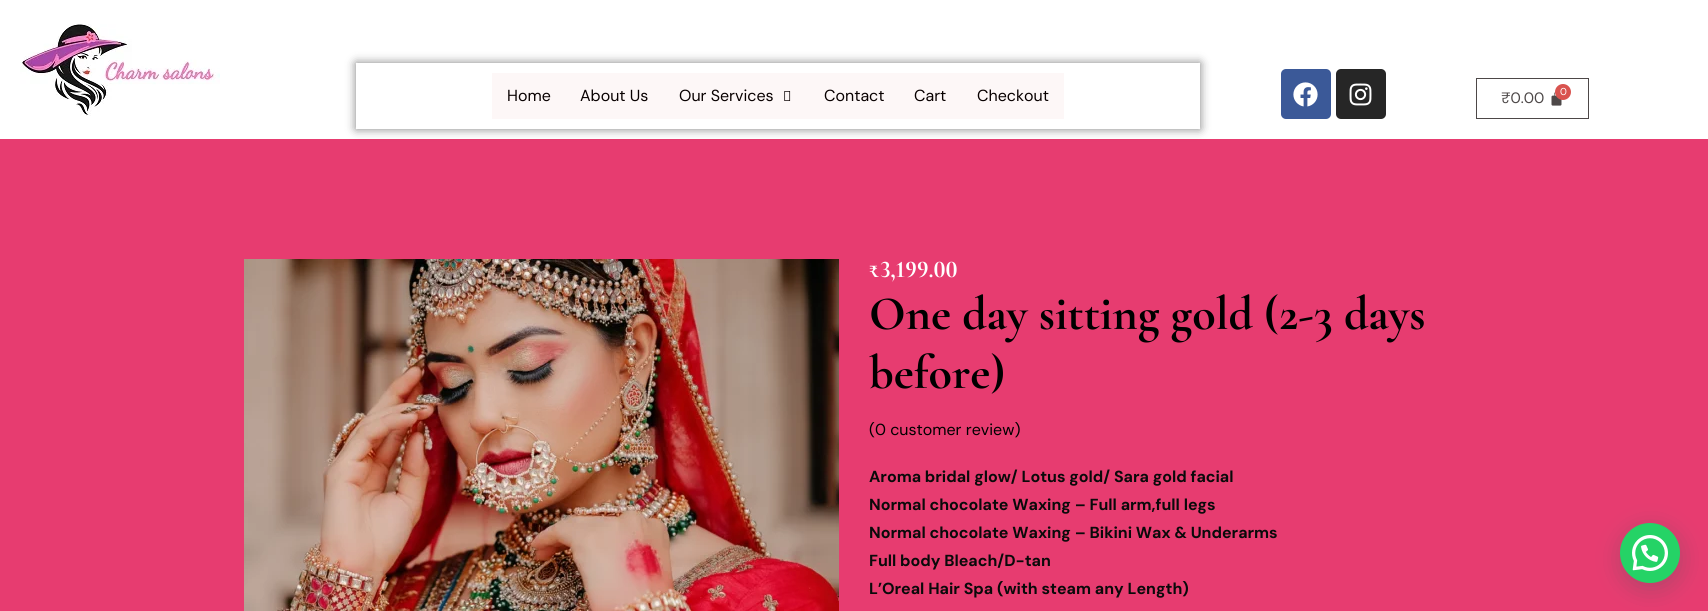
#include <cairo.h>
#include <math.h>
#include <stddef.h>

typedef struct { double x, y; const char *s; } line_t;

static void ink(cairo_t *ctx, unsigned color) {
    cairo_set_source_rgb(ctx, (color >> 16) / 255.0, (color >> 8 & 255) / 255.0, (color & 255) / 255.0);
}

static void round_path(cairo_t *ctx, double x, double y, double w, double h, double r) {
    cairo_new_sub_path(ctx);
    cairo_arc(ctx, x + w - r, y + h - r, r, 0, M_PI / 2);
    cairo_arc(ctx, x + r, y + h - r, r, M_PI / 2, M_PI);
    cairo_arc(ctx, x + r, y + r, r, M_PI, 1.5 * M_PI);
    cairo_arc(ctx, x + w - r, y + r, r, 1.5 * M_PI, 2 * M_PI);
    cairo_close_path(ctx);
}

static void blur_box(cairo_t *ctx, double x, double y, double w, double h, double r, double blur, double alpha) {
    cairo_push_group_with_content(ctx, CAIRO_CONTENT_ALPHA);
    cairo_set_operator(ctx, CAIRO_OPERATOR_SOURCE);
    for (int i = 15; i >= -15 && fmin(w, h) + blur * i / 3 > 0; i -= 2) {
        double e = blur * i / 6;
        cairo_set_source_rgba(ctx, 0, 0, 0, alpha * erfc((i - 1) / 8.5) / 2);
        round_path(ctx, x - e, y - e, w + 2 * e, h + 2 * e, fmax(0, fmin(r + e + blur * .6, fmin(w, h) / 2 + e)));
        cairo_fill(ctx);
    }
    cairo_pattern_t *soft = cairo_pop_group(ctx);
    cairo_mask(ctx, soft);
    cairo_pattern_destroy(soft);
}

static void paste(cairo_t *ctx, const char *path, double x, double y, double w, double h) {
    cairo_surface_t *image = cairo_image_surface_create_from_png(path);
    cairo_save(ctx);
    cairo_set_source_surface(ctx, image, x, y);
    cairo_rectangle(ctx, x, y, w, h);
    cairo_fill(ctx);
    cairo_restore(ctx);
    cairo_surface_destroy(image);
}

int main(void) {
    cairo_surface_t *surface = cairo_image_surface_create(CAIRO_FORMAT_RGB24, 1708, 611);
    cairo_t *ctx = cairo_create(surface);
    cairo_font_options_t *options = cairo_font_options_create();
    cairo_font_options_set_hint_metrics(options, CAIRO_HINT_METRICS_OFF);
    cairo_font_options_set_hint_style(options, CAIRO_HINT_STYLE_NONE);
    cairo_set_font_options(ctx, options);
    cairo_set_miter_limit(ctx, 4);
    ink(ctx, 0xE73C70);
    cairo_paint(ctx);
    ink(ctx, 0xFFFFFF);
    cairo_rectangle(ctx, 0, 0, 1708, 139);
    cairo_fill(ctx);
    paste(ctx, "media/1.png", 20, 24, 200, 92);
    cairo_save(ctx);
    cairo_set_fill_rule(ctx, CAIRO_FILL_RULE_EVEN_ODD);
    cairo_new_path(ctx);
    cairo_move_to(ctx, 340, 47);
    cairo_line_to(ctx, 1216, 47);
    cairo_line_to(ctx, 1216, 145);
    cairo_line_to(ctx, 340, 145);
    cairo_close_path(ctx);
    cairo_move_to(ctx, 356, 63);
    cairo_line_to(ctx, 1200, 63);
    cairo_line_to(ctx, 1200, 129);
    cairo_line_to(ctx, 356, 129);
    cairo_close_path(ctx);
    cairo_clip(ctx);
    ink(ctx, 0x000000);
    blur_box(ctx, 356, 63, 844, 66, 0, 5, 0.5);
    cairo_restore(ctx);
    ink(ctx, 0xFDF7F7);
    cairo_rectangle(ctx, 492, 73, 572, 46);
    cairo_fill(ctx);
    cairo_select_font_face(ctx, "DM Sans", CAIRO_FONT_SLANT_NORMAL, CAIRO_FONT_WEIGHT_NORMAL);
    cairo_set_font_size(ctx, 16);
    ink(ctx, 0x080000);
    {
        static const line_t items[] = {
            {507, 101, "Home"},
            {580, 101, "About Us"},
            {679, 101, "Our Services"},
        };
        for (size_t i = 0; i < sizeof items / sizeof *items; i++) {
            cairo_move_to(ctx, items[i].x, items[i].y);
            cairo_show_text(ctx, items[i].s);
        }
    }
    paste(ctx, "media/2.png", 784, 91, 7, 10);
    {
        static const line_t items[] = {
            {824, 101, "Contact"},
            {914, 101, "Cart"},
            {977, 101, "Checkout"},
        };
        for (size_t i = 0; i < sizeof items / sizeof *items; i++) {
            cairo_move_to(ctx, items[i].x, items[i].y);
            cairo_show_text(ctx, items[i].s);
        }
    }
    ink(ctx, 0x3B5998);
    round_path(ctx, 1281, 69, 50, 50, 5);
    cairo_fill(ctx);
    paste(ctx, "media/3.png", 1293, 82, 25, 25);
    ink(ctx, 0x262626);
    round_path(ctx, 1336, 69, 50, 50, 5);
    cairo_fill(ctx);
    paste(ctx, "media/4.png", 1349, 83, 23, 23);
    cairo_rectangle(ctx, 1476.5, 78.5, 112, 40);
    ink(ctx, 0x4D4848);
    cairo_set_line_width(ctx, 1);
    cairo_stroke(ctx);
    cairo_set_font_size(ctx, 15);
    cairo_move_to(ctx, 1501, 103);
    cairo_show_text(ctx, "₹0.00");
    paste(ctx, "media/5.png", 1551, 92, 11, 14);
    ink(ctx, 0xD9534F);
    cairo_arc(ctx, 1563, 92, 8, 0, 2 * M_PI);
    cairo_fill(ctx);
    cairo_set_font_size(ctx, 10);
    ink(ctx, 0xFFFFFF);
    cairo_move_to(ctx, 1560, 95);
    cairo_show_text(ctx, "0");
    paste(ctx, "media/6.png", 244, 259, 595, 352);
    cairo_select_font_face(ctx, "Cormorant Garamond", CAIRO_FONT_SLANT_NORMAL, CAIRO_FONT_WEIGHT_BOLD);
    cairo_set_font_size(ctx, 24);
    cairo_move_to(ctx, 869, 277);
    cairo_show_text(ctx, "₹");
    cairo_select_font_face(ctx, "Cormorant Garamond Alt", CAIRO_FONT_SLANT_NORMAL, CAIRO_FONT_WEIGHT_BOLD);
    cairo_move_to(ctx, 880, 277);
    cairo_show_text(ctx, "3,199.00");
    cairo_select_font_face(ctx, "Cormorant Garamond", CAIRO_FONT_SLANT_NORMAL, CAIRO_FONT_WEIGHT_BOLD);
    cairo_set_font_size(ctx, 48);
    ink(ctx, 0x000000);
    cairo_move_to(ctx, 869, 329);
    cairo_show_text(ctx, "One day sitting gold (2-3 days");
    cairo_move_to(ctx, 869, 388);
    cairo_show_text(ctx, "before)");
    cairo_select_font_face(ctx, "DM Sans", CAIRO_FONT_SLANT_NORMAL, CAIRO_FONT_WEIGHT_NORMAL);
    cairo_set_font_size(ctx, 16);
    cairo_move_to(ctx, 869, 435);
    cairo_show_text(ctx, "(0 customer review)");
    cairo_select_font_face(ctx, "DM Sans", CAIRO_FONT_SLANT_NORMAL, CAIRO_FONT_WEIGHT_BOLD);
    ink(ctx, 0x0A0A0A);
    {
        static const line_t items[] = {
            {869, 482, "Aroma bridal glow/ Lotus gold/ Sara gold facial"},
            {869, 510, "Normal chocolate Waxing – Full arm,full legs"},
            {869, 538, "Normal chocolate Waxing – Bikini Wax & Underarms"},
            {869, 566, "Full body Bleach/D-tan"},
            {869, 594, "L’Oreal Hair Spa (with steam any Length)"},
        };
        for (size_t i = 0; i < sizeof items / sizeof *items; i++) {
            cairo_move_to(ctx, items[i].x, items[i].y);
            cairo_show_text(ctx, items[i].s);
        }
    }
    ink(ctx, 0x075E54);
    blur_box(ctx, 1621, 529, 60, 60, 30, 12, 0.24);
    ink(ctx, 0x25D366);
    cairo_arc(ctx, 1650, 553, 30, 0, 2 * M_PI);
    cairo_fill(ctx);
    paste(ctx, "media/7.png", 1632, 535, 36, 36);
    cairo_surface_write_to_png(surface, "image.png");
    cairo_font_options_destroy(options);
    cairo_destroy(ctx);
    cairo_surface_destroy(surface);
    return 0;
}
